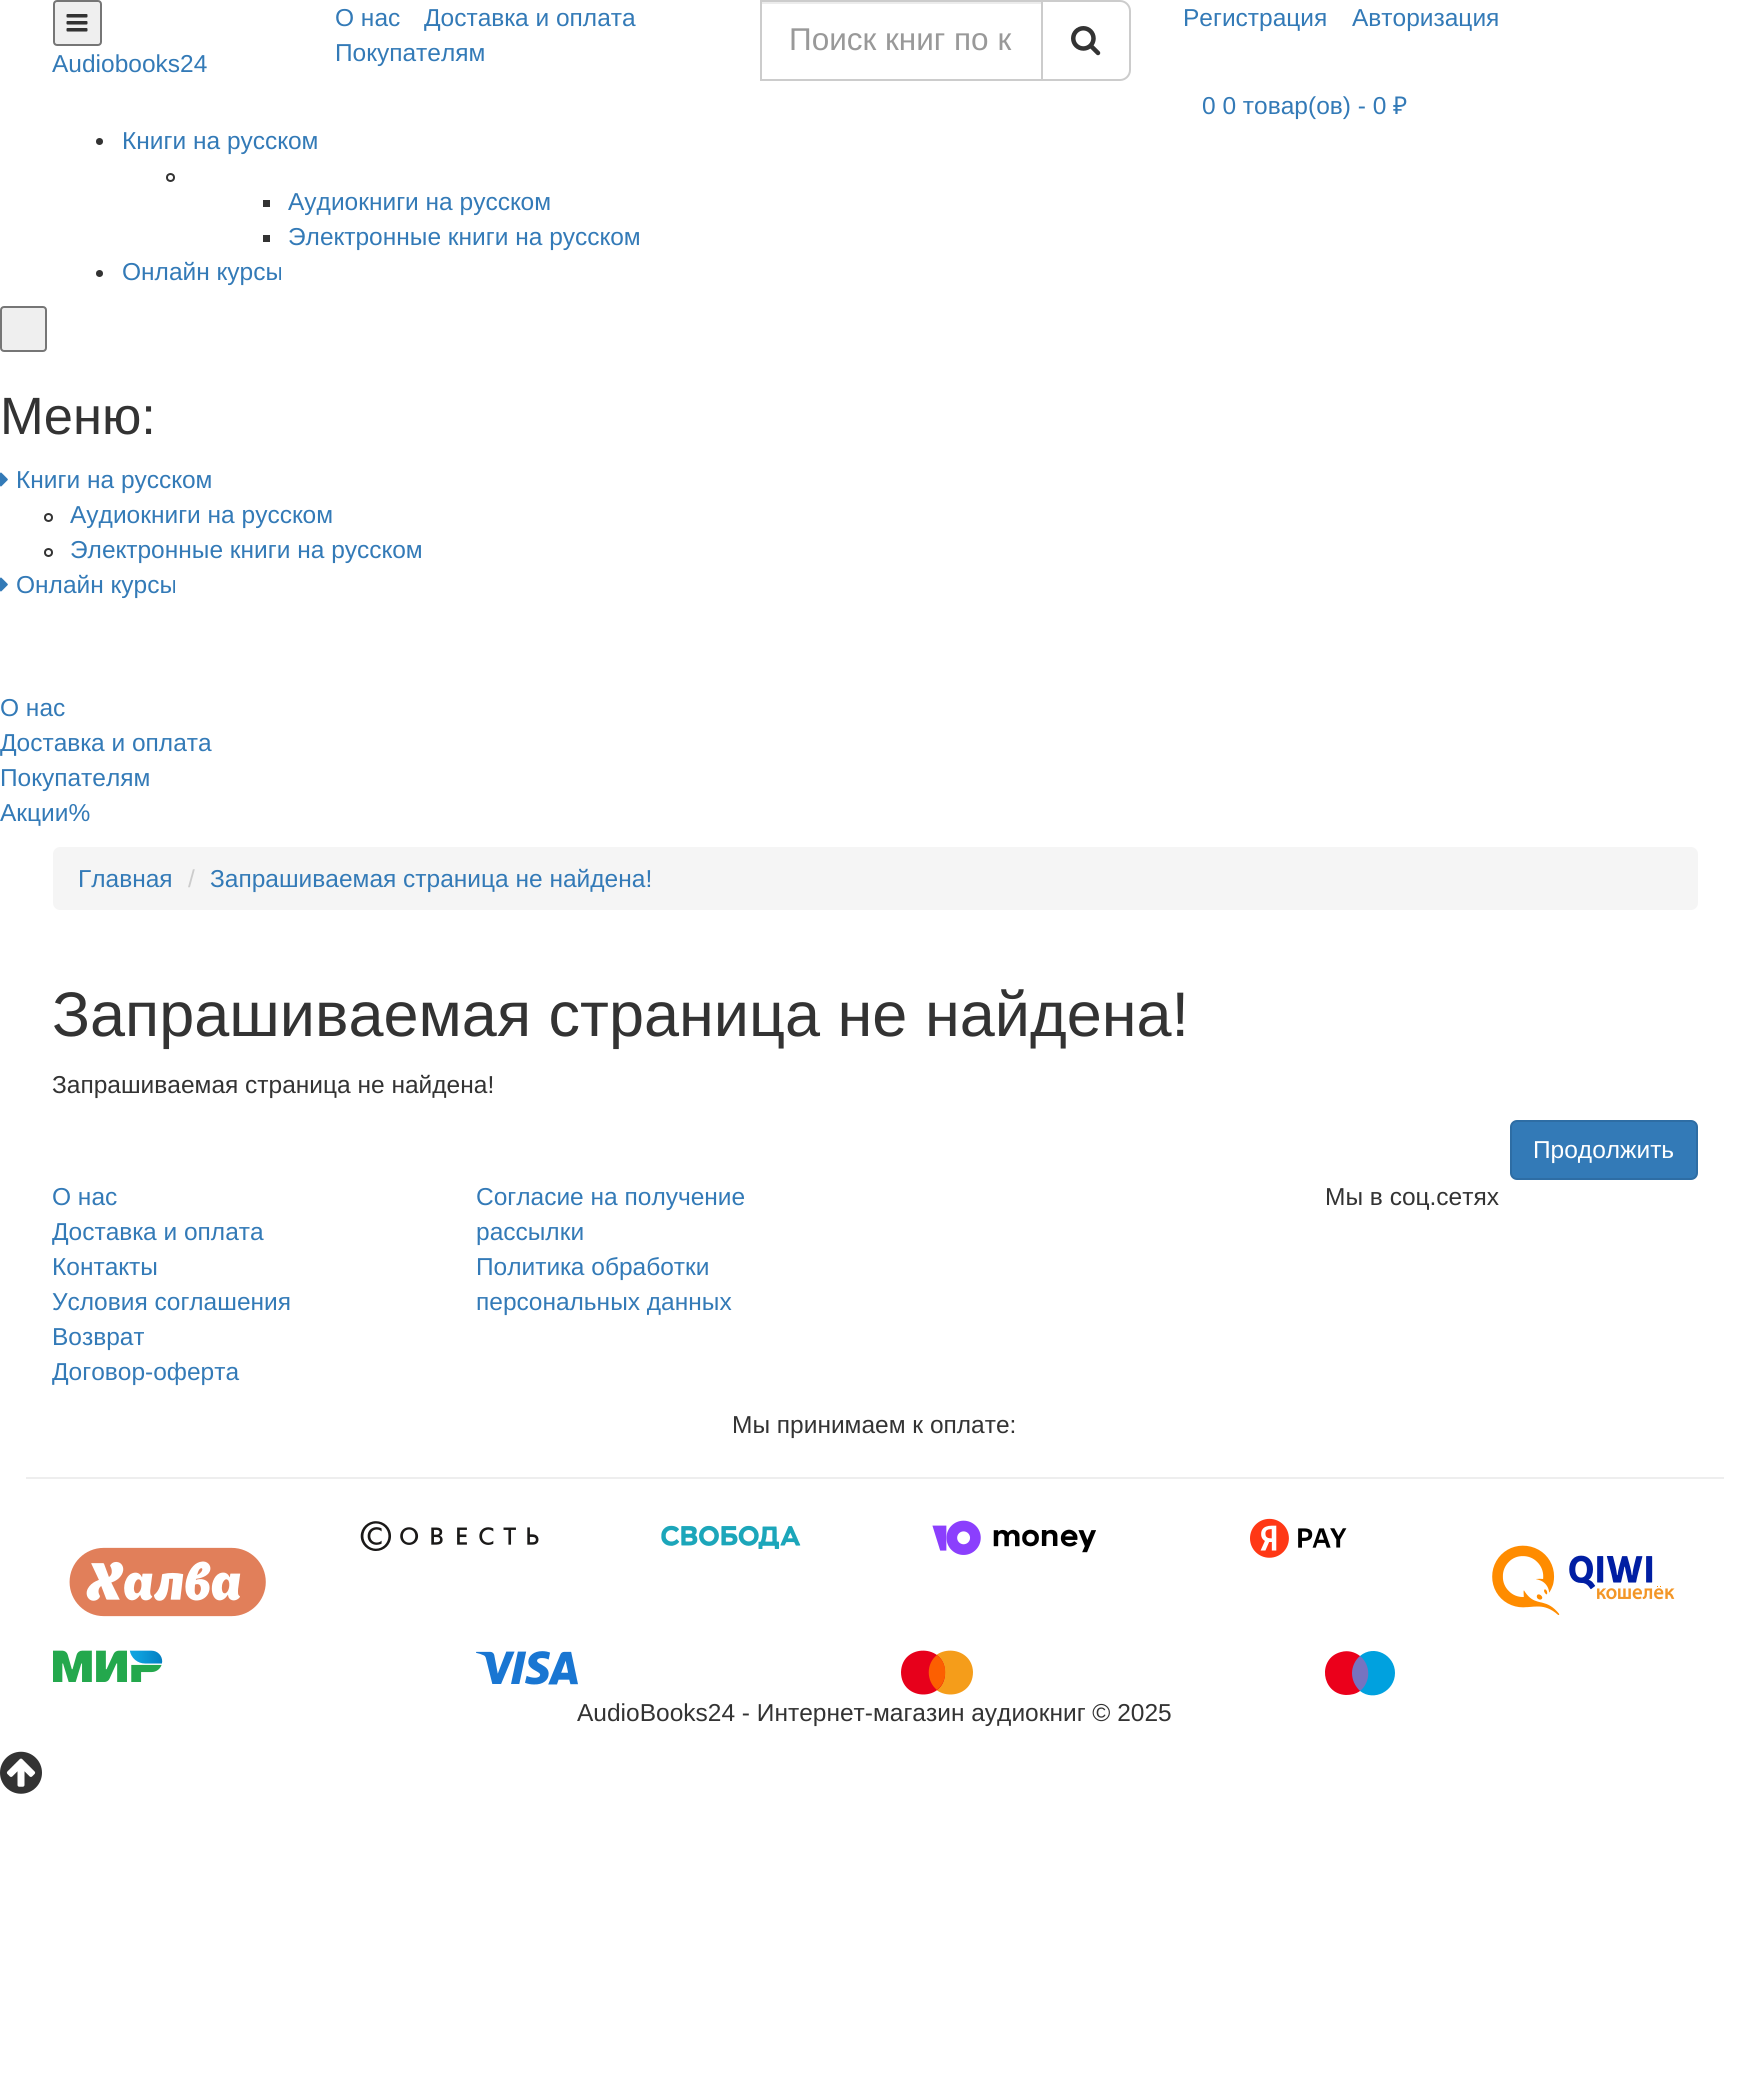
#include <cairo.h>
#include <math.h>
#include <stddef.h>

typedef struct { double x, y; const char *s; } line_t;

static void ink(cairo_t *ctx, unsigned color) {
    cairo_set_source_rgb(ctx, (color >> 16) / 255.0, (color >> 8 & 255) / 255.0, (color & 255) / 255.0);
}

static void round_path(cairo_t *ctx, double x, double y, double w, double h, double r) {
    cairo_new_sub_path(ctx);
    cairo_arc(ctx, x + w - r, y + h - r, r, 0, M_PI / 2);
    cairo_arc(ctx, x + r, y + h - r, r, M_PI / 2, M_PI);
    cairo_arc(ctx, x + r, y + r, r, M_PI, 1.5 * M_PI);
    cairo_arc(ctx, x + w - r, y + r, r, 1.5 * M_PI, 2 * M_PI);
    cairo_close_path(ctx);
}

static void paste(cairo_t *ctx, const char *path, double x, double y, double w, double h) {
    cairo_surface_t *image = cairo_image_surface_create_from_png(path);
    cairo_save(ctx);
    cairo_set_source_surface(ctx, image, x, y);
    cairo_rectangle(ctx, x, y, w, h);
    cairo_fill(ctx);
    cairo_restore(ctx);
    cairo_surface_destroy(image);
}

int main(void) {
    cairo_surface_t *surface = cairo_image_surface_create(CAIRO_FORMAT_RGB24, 1748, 2099);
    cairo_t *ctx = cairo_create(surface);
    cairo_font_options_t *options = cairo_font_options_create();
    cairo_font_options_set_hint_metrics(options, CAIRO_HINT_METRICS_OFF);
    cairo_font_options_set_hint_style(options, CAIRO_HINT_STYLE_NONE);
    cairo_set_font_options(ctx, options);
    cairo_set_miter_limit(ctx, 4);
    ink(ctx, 0xFFFFFF);
    cairo_paint(ctx);
    cairo_select_font_face(ctx, "Liberation Sans", CAIRO_FONT_SLANT_NORMAL, CAIRO_FONT_WEIGHT_NORMAL);
    cairo_set_font_size(ctx, 24.5);
    ink(ctx, 0x337AB7);
    {
        static const line_t items[] = {
            {335, 26, "О нас"},
            {424, 26, "Доставка и оплата"},
            {335, 61, "Покупателям"},
        };
        for (size_t i = 0; i < sizeof items / sizeof *items; i++) {
            cairo_move_to(ctx, items[i].x, items[i].y);
            cairo_show_text(ctx, items[i].s);
        }
    }
    ink(ctx, 0xECECEC);
    cairo_rectangle(ctx, 761, 2, 280, 2);
    cairo_fill(ctx);
    cairo_rectangle(ctx, 761, 1, 281, 79);
    ink(ctx, 0xCCCCCC);
    cairo_stroke(ctx);
    cairo_set_font_size(ctx, 31.5);
    ink(ctx, 0x999999);
    cairo_move_to(ctx, 789, 50);
    cairo_show_text(ctx, "Поиск книг по к");
    ink(ctx, 0xFFFFFF);
    cairo_new_path(ctx);
    cairo_move_to(ctx, 1042, 1);
    cairo_line_to(ctx, 1120, 1);
    cairo_curve_to(ctx, 1125.5, 1, 1130, 5.5, 1130, 11);
    cairo_line_to(ctx, 1130, 70);
    cairo_curve_to(ctx, 1130, 75.5, 1125.5, 80, 1120, 80);
    cairo_line_to(ctx, 1042, 80);
    cairo_close_path(ctx);
    cairo_fill_preserve(ctx);
    ink(ctx, 0xCCCCCC);
    cairo_stroke(ctx);
    paste(ctx, "media/1.png", 1071, 26, 30, 30);
    cairo_set_font_size(ctx, 24.5);
    ink(ctx, 0x337AB7);
    {
        static const line_t items[] = {
            {1183, 26, "Регистрация"},
            {1352, 26, "Авторизация"},
            {1202, 114, "0 0 товар(ов) - 0"},
        };
        for (size_t i = 0; i < sizeof items / sizeof *items; i++) {
            cairo_move_to(ctx, items[i].x, items[i].y);
            cairo_show_text(ctx, items[i].s);
        }
    }
    cairo_select_font_face(ctx, "Noto Sans", CAIRO_FONT_SLANT_NORMAL, CAIRO_FONT_WEIGHT_NORMAL);
    cairo_move_to(ctx, 1393, 114);
    cairo_show_text(ctx, "₽");
    ink(ctx, 0xEFEFEF);
    round_path(ctx, 54, 1, 47, 44, 3);
    cairo_fill_preserve(ctx);
    ink(ctx, 0x767676);
    cairo_stroke(ctx);
    paste(ctx, "media/2.png", 66, 14, 22, 18);
    cairo_select_font_face(ctx, "Liberation Sans", CAIRO_FONT_SLANT_NORMAL, CAIRO_FONT_WEIGHT_NORMAL);
    ink(ctx, 0x337AB7);
    cairo_move_to(ctx, 52, 72);
    cairo_show_text(ctx, "Audiobooks24");
    ink(ctx, 0x333333);
    cairo_new_path(ctx);
    cairo_arc(ctx, 99.5, 141.5, 3.5, 0, 2 * M_PI);
    cairo_fill(ctx);
    ink(ctx, 0x337AB7);
    cairo_move_to(ctx, 122, 149);
    cairo_show_text(ctx, "Книги на русском");
    cairo_new_path(ctx);
    cairo_arc(ctx, 170.5, 177.5, 3.5, 0, 2 * M_PI);
    ink(ctx, 0x333333);
    cairo_stroke(ctx);
    cairo_rectangle(ctx, 263, 200, 7, 7);
    cairo_fill(ctx);
    ink(ctx, 0x337AB7);
    cairo_move_to(ctx, 288, 210);
    cairo_show_text(ctx, "Аудиокниги на русском");
    ink(ctx, 0x333333);
    cairo_rectangle(ctx, 263, 235, 7, 7);
    cairo_fill(ctx);
    ink(ctx, 0x337AB7);
    cairo_move_to(ctx, 288, 245);
    cairo_show_text(ctx, "Электронные книги на русском");
    ink(ctx, 0x333333);
    cairo_new_path(ctx);
    cairo_arc(ctx, 99.5, 273.5, 3.5, 0, 2 * M_PI);
    cairo_fill(ctx);
    ink(ctx, 0x337AB7);
    cairo_move_to(ctx, 122, 280);
    cairo_show_text(ctx, "Онлайн курсы");
    ink(ctx, 0xEFEFEF);
    round_path(ctx, 1, 307, 45, 44, 3);
    cairo_fill_preserve(ctx);
    ink(ctx, 0x767676);
    cairo_stroke(ctx);
    cairo_set_font_size(ctx, 52.5);
    ink(ctx, 0x333333);
    cairo_move_to(ctx, 0, 434);
    cairo_show_text(ctx, "Меню:");
    paste(ctx, "media/3.png", 0, 472, 8, 15);
    cairo_set_font_size(ctx, 24.5);
    ink(ctx, 0x337AB7);
    cairo_move_to(ctx, 16, 488);
    cairo_show_text(ctx, "Книги на русском");
    cairo_new_path(ctx);
    cairo_arc(ctx, 48.5, 517.5, 3.5, 0, 2 * M_PI);
    ink(ctx, 0x333333);
    cairo_stroke(ctx);
    ink(ctx, 0x337AB7);
    cairo_move_to(ctx, 70, 523);
    cairo_show_text(ctx, "Аудиокниги на русском");
    cairo_new_path(ctx);
    cairo_arc(ctx, 48.5, 552.5, 3.5, 0, 2 * M_PI);
    ink(ctx, 0x333333);
    cairo_stroke(ctx);
    ink(ctx, 0x337AB7);
    cairo_move_to(ctx, 70, 558);
    cairo_show_text(ctx, "Электронные книги на русском");
    paste(ctx, "media/3.png", 0, 577, 8, 15);
    {
        static const line_t items[] = {
            {16, 593, "Онлайн курсы"},
            {0, 716, "О нас"},
            {0, 751, "Доставка и оплата"},
            {0, 786, "Покупателям"},
            {0, 821, "Акции%"},
        };
        for (size_t i = 0; i < sizeof items / sizeof *items; i++) {
            cairo_move_to(ctx, items[i].x, items[i].y);
            cairo_show_text(ctx, items[i].s);
        }
    }
    ink(ctx, 0xF5F5F5);
    round_path(ctx, 53, 847, 1645, 63, 7);
    cairo_fill(ctx);
    ink(ctx, 0x337AB7);
    cairo_move_to(ctx, 78, 887);
    cairo_show_text(ctx, "Главная");
    ink(ctx, 0xCCCCCC);
    cairo_move_to(ctx, 188, 887);
    cairo_show_text(ctx, "/");
    ink(ctx, 0x337AB7);
    cairo_move_to(ctx, 210, 887);
    cairo_show_text(ctx, "Запрашиваемая страница не найдена!");
    cairo_set_font_size(ctx, 63);
    ink(ctx, 0x333333);
    cairo_move_to(ctx, 52, 1036);
    cairo_show_text(ctx, "Запрашиваемая страница не найдена!");
    cairo_set_font_size(ctx, 24.5);
    cairo_move_to(ctx, 52, 1093);
    cairo_show_text(ctx, "Запрашиваемая страница не найдена!");
    ink(ctx, 0x337AB7);
    round_path(ctx, 1511, 1121, 186, 58, 6);
    cairo_fill_preserve(ctx);
    ink(ctx, 0x2E6DA4);
    cairo_stroke(ctx);
    ink(ctx, 0xFFFFFF);
    cairo_move_to(ctx, 1533, 1158);
    cairo_show_text(ctx, "Продолжить");
    ink(ctx, 0x337AB7);
    {
        static const line_t items[] = {
            {52, 1205, "О нас"},
            {52, 1240, "Доставка и оплата"},
            {52, 1275, "Контакты"},
            {52, 1310, "Условия соглашения"},
            {52, 1345, "Возврат"},
            {52, 1380, "Договор-оферта"},
            {476, 1205, "Согласие на получение"},
            {476, 1240, "рассылки"},
            {476, 1275, "Политика обработки"},
            {476, 1310, "персональных данных"},
        };
        for (size_t i = 0; i < sizeof items / sizeof *items; i++) {
            cairo_move_to(ctx, items[i].x, items[i].y);
            cairo_show_text(ctx, items[i].s);
        }
    }
    ink(ctx, 0x333333);
    cairo_move_to(ctx, 1325, 1205);
    cairo_show_text(ctx, "Мы в соц.сетях");
    cairo_move_to(ctx, 732, 1433);
    cairo_show_text(ctx, "Мы принимаем к оплате:");
    ink(ctx, 0xEEEEEE);
    cairo_rectangle(ctx, 26, 1477, 1698, 2);
    cairo_fill(ctx);
    paste(ctx, "media/4.png", 360, 1521, 179, 30);
    paste(ctx, "media/5.png", 661, 1525, 140, 24);
    paste(ctx, "media/6.png", 932, 1520, 164, 35);
    paste(ctx, "media/7.png", 1250, 1518, 97, 40);
    paste(ctx, "media/8.png", 69, 1547, 197, 70);
    paste(ctx, "media/9.png", 1492, 1545, 183, 70);
    paste(ctx, "media/10.png", 53, 1650, 110, 32);
    paste(ctx, "media/11.png", 476, 1651, 102, 34);
    ink(ctx, 0xF59D1A);
    cairo_new_path(ctx);
    cairo_move_to(ctx, 973, 1672);
    cairo_curve_to(ctx, 973, 1702, 928, 1702, 928, 1672);
    cairo_curve_to(ctx, 929, 1643, 972, 1644, 973, 1672);
    cairo_close_path(ctx);
    cairo_fill(ctx);
    ink(ctx, 0xE7001B);
    cairo_new_path(ctx);
    cairo_move_to(ctx, 945, 1672);
    cairo_curve_to(ctx, 946, 1702, 901, 1702, 901, 1672);
    cairo_curve_to(ctx, 902, 1643, 945, 1644, 945, 1672);
    cairo_close_path(ctx);
    cairo_fill(ctx);
    ink(ctx, 0xFC5F01);
    cairo_new_path(ctx);
    cairo_move_to(ctx, 937, 1655);
    cairo_curve_to(ctx, 926, 1663.5, 926, 1681, 937, 1690);
    cairo_curve_to(ctx, 948, 1681, 948, 1663.5, 937, 1655);
    cairo_close_path(ctx);
    cairo_fill(ctx);
    ink(ctx, 0x7673C0);
    cairo_rectangle(ctx, 1352, 1656, 17, 35);
    cairo_fill(ctx);
    ink(ctx, 0xEB001B);
    cairo_new_path(ctx);
    cairo_move_to(ctx, 1352, 1673);
    cairo_curve_to(ctx, 1352, 1667, 1355, 1660, 1360, 1656);
    cairo_curve_to(ctx, 1355, 1652, 1348, 1650, 1341, 1652);
    cairo_curve_to(ctx, 1317, 1658, 1321, 1694, 1346, 1695);
    cairo_curve_to(ctx, 1351, 1695, 1356, 1694, 1360, 1691);
    cairo_curve_to(ctx, 1355, 1686, 1352, 1680, 1352, 1673);
    cairo_close_path(ctx);
    cairo_fill(ctx);
    ink(ctx, 0x00A1DF);
    cairo_new_path(ctx);
    cairo_move_to(ctx, 1395, 1673);
    cairo_curve_to(ctx, 1395, 1691, 1374, 1702, 1360, 1691);
    cairo_curve_to(ctx, 1371, 1682, 1371, 1665, 1360, 1656);
    cairo_curve_to(ctx, 1374, 1644, 1395, 1655, 1395, 1673);
    cairo_close_path(ctx);
    cairo_fill(ctx);
    ink(ctx, 0x333333);
    cairo_move_to(ctx, 577, 1721);
    cairo_show_text(ctx, "AudioBooks24 - Интернет-магазин аудиокниг © 2025");
    paste(ctx, "media/12.png", 0, 1751, 42, 43);
    cairo_surface_write_to_png(surface, "image.png");
    cairo_font_options_destroy(options);
    cairo_destroy(ctx);
    cairo_surface_destroy(surface);
    return 0;
}
